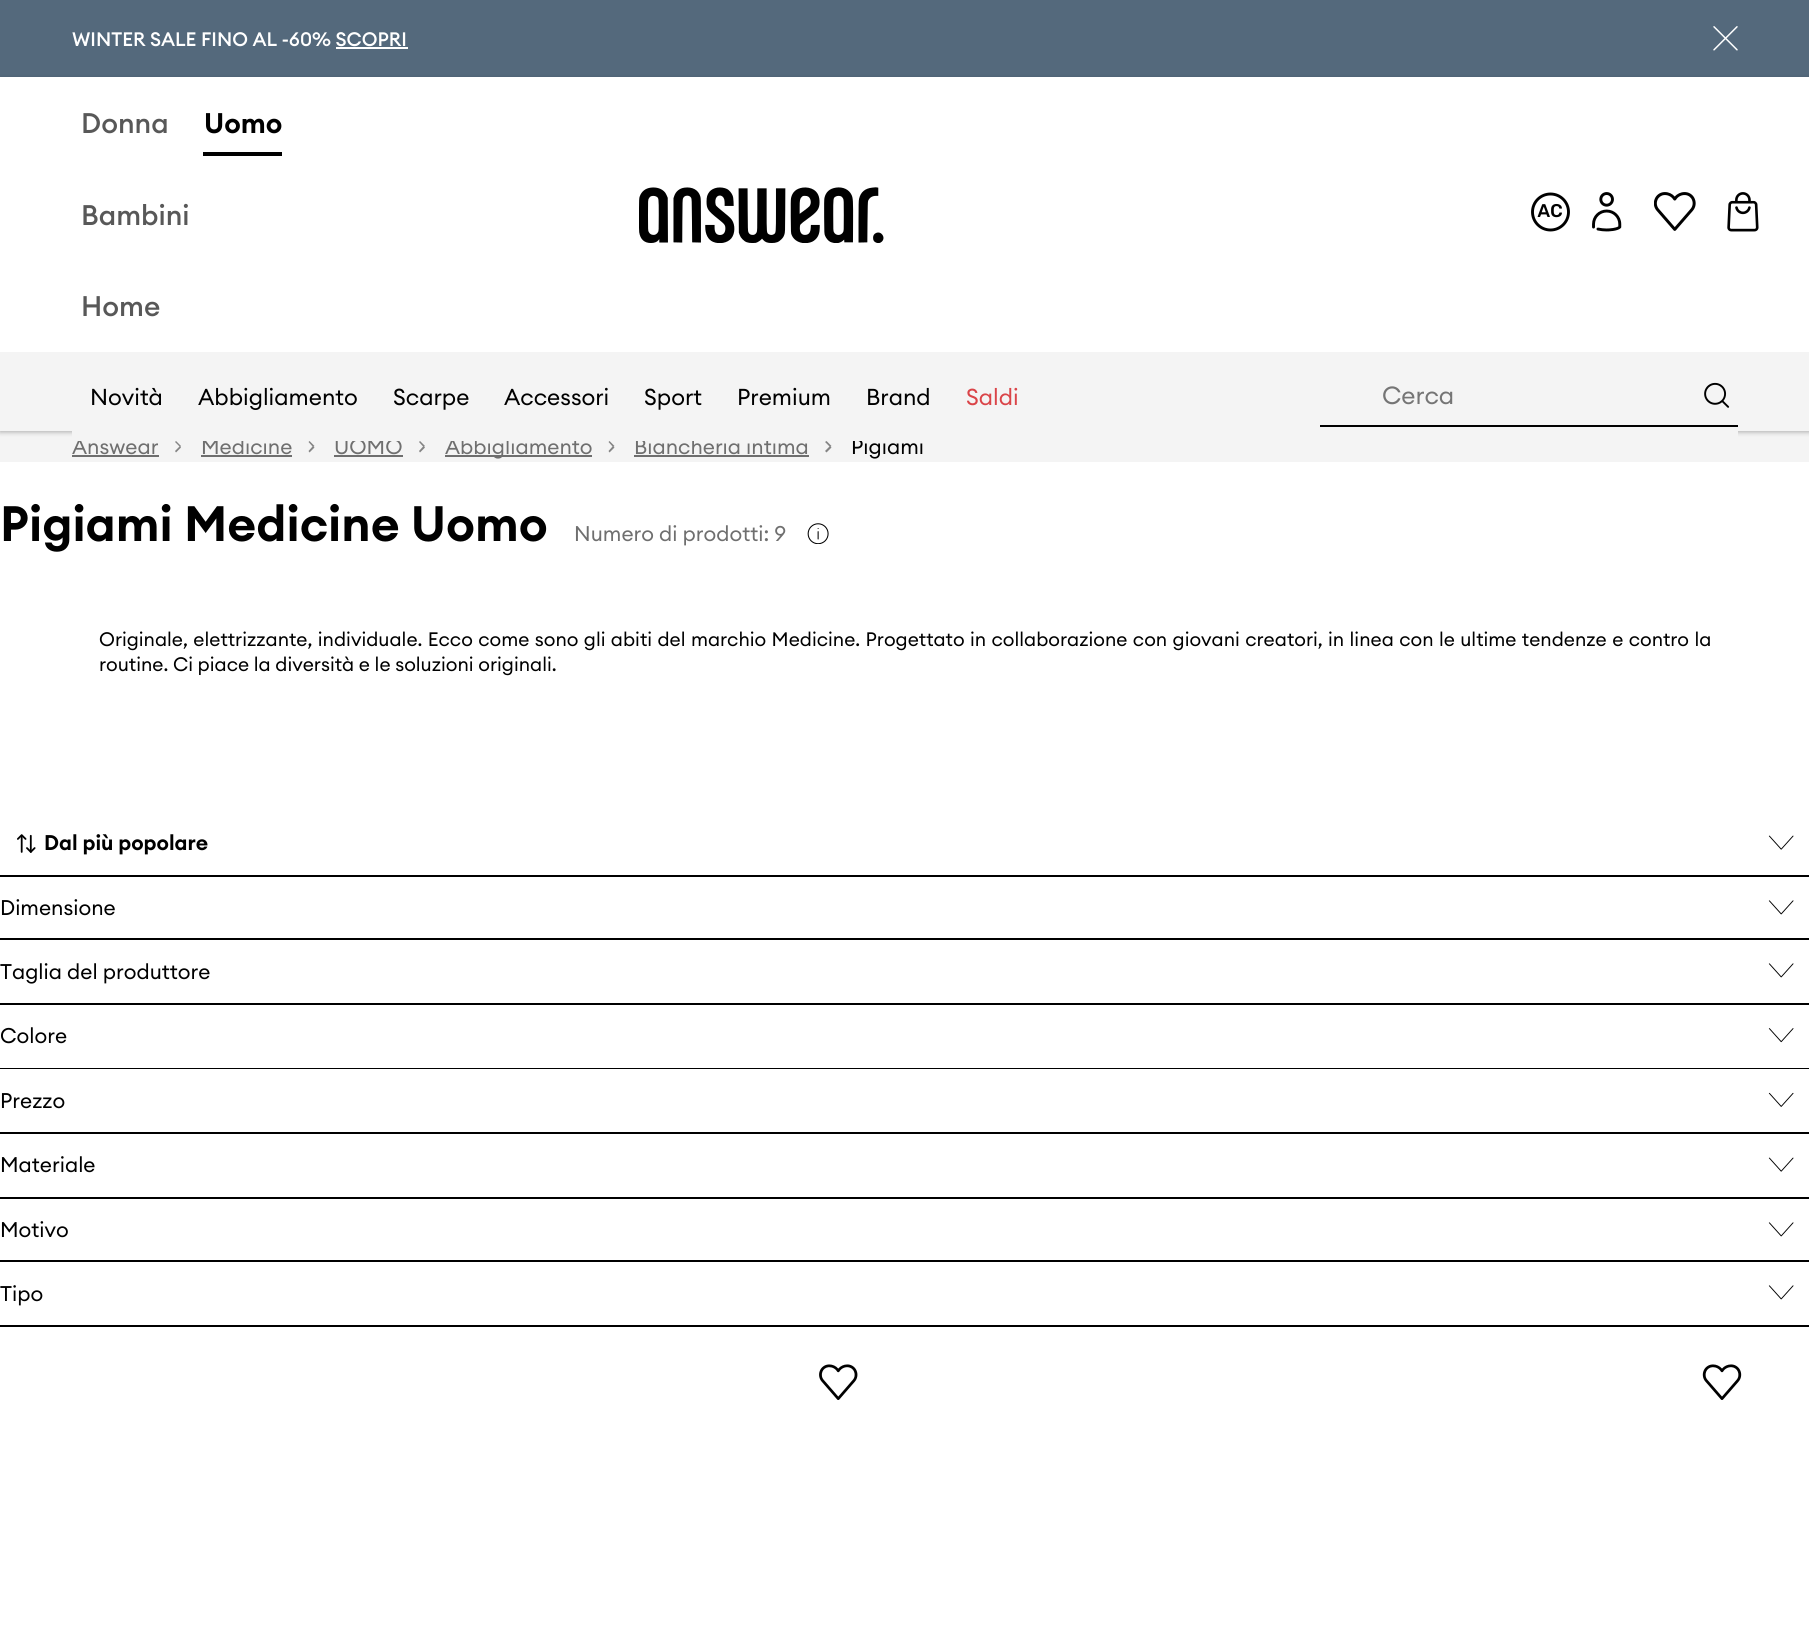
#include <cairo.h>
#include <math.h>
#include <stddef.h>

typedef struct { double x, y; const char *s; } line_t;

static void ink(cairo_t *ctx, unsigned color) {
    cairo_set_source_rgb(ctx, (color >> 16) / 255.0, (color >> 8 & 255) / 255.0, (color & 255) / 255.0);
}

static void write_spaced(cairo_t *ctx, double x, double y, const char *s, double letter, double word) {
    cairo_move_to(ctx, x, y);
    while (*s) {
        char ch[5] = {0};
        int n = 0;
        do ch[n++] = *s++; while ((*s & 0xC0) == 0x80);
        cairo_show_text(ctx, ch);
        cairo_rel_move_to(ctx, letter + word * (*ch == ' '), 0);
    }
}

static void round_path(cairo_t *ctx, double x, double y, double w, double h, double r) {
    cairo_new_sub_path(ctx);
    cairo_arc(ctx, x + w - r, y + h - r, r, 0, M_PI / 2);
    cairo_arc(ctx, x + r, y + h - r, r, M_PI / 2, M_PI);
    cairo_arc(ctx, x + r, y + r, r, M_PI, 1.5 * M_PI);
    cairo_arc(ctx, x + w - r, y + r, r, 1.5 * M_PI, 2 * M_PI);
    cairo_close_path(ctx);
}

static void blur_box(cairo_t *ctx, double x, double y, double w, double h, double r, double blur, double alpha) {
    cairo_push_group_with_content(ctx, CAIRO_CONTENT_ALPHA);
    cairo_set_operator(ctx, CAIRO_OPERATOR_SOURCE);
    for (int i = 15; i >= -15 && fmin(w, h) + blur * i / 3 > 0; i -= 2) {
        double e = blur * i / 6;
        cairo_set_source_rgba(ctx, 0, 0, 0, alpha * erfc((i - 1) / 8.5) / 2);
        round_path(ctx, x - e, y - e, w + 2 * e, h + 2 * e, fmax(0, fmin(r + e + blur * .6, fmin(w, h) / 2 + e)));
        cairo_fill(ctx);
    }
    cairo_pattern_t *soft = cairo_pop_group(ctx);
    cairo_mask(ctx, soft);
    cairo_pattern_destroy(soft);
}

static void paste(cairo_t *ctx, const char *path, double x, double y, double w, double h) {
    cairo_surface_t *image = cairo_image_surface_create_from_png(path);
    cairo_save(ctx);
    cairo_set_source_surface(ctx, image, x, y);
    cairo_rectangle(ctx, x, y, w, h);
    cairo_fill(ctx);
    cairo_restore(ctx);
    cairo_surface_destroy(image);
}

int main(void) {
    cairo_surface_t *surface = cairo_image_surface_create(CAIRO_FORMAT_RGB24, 1809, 1628);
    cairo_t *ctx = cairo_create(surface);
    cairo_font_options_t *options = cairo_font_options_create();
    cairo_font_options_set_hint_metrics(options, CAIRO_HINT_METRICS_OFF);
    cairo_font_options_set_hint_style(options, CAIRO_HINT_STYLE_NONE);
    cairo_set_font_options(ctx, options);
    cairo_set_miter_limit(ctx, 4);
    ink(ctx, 0xFFFFFF);
    cairo_paint(ctx);
    ink(ctx, 0x54697C);
    cairo_rectangle(ctx, 0, 0, 1809, 77);
    cairo_fill(ctx);
    cairo_select_font_face(ctx, "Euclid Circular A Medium", CAIRO_FONT_SLANT_NORMAL, CAIRO_FONT_WEIGHT_NORMAL);
    cairo_set_font_size(ctx, 19.25);
    ink(ctx, 0xFFFFFF);
    cairo_move_to(ctx, 72, 46);
    cairo_show_text(ctx, "WINTER SALE FINO AL -60% SCOPRI");
    cairo_rectangle(ctx, 336, 47, 72, 2);
    cairo_fill(ctx);
    paste(ctx, "media/1.png", 1713, 26, 25, 25);
    ink(ctx, 0xF4F4F4);
    cairo_rectangle(ctx, 0, 431, 1809, 31);
    cairo_fill(ctx);
    ink(ctx, 0x000000);
    blur_box(ctx, 0, 79, 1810, 353, 0, 2.5, 0.3);
    ink(ctx, 0xFFFFFF);
    cairo_rectangle(ctx, 0, 77, 1809, 275);
    cairo_fill(ctx);
    cairo_set_font_size(ctx, 28);
    ink(ctx, 0x585858);
    cairo_move_to(ctx, 81, 133);
    cairo_show_text(ctx, "Donna");
    cairo_select_font_face(ctx, "Euclid Circular A SemiBold", CAIRO_FONT_SLANT_NORMAL, CAIRO_FONT_WEIGHT_NORMAL);
    ink(ctx, 0x000000);
    cairo_move_to(ctx, 204, 133);
    cairo_show_text(ctx, "Uomo");
    cairo_rectangle(ctx, 203, 152, 79, 4);
    cairo_fill(ctx);
    cairo_select_font_face(ctx, "Euclid Circular A Medium", CAIRO_FONT_SLANT_NORMAL, CAIRO_FONT_WEIGHT_NORMAL);
    ink(ctx, 0x585858);
    cairo_move_to(ctx, 81, 225);
    cairo_show_text(ctx, "Bambini");
    cairo_move_to(ctx, 81, 316);
    cairo_show_text(ctx, "Home");
    paste(ctx, "media/2.png", 639, 187, 245, 56);
    paste(ctx, "media/3.png", 1531, 192, 39, 40);
    paste(ctx, "media/4.png", 1592, 192, 30, 40);
    paste(ctx, "media/5.png", 1654, 192, 42, 39);
    paste(ctx, "media/6.png", 1727, 192, 32, 40);
    ink(ctx, 0xF4F4F4);
    cairo_rectangle(ctx, 0, 352, 1809, 79);
    cairo_fill(ctx);
    cairo_select_font_face(ctx, "Euclid Circular A", CAIRO_FONT_SLANT_NORMAL, CAIRO_FONT_WEIGHT_NORMAL);
    cairo_set_font_size(ctx, 21);
    ink(ctx, 0x6F6F6F);
    {
        static const line_t items[] = {
            {72, 454, "Answear"},
            {201, 454, "Medicine"},
            {334, 454, "UOMO"},
        };
        for (size_t i = 0; i < sizeof items / sizeof *items; i++) {
            cairo_move_to(ctx, items[i].x, items[i].y);
            cairo_show_text(ctx, items[i].s);
        }
    }
    ink(ctx, 0x6E6E6E);
    cairo_rectangle(ctx, 445, 455, 147, 2);
    cairo_fill(ctx);
    ink(ctx, 0x6F6F6F);
    cairo_move_to(ctx, 445, 454);
    cairo_show_text(ctx, "Abbigliamento");
    cairo_move_to(ctx, 634, 454);
    cairo_show_text(ctx, "Biancheria intima");
    ink(ctx, 0x000000);
    cairo_move_to(ctx, 851, 454);
    cairo_show_text(ctx, "Pigiami");
    ink(ctx, 0xF4F4F4);
    cairo_rectangle(ctx, 72, 431, 1666, 10);
    cairo_fill(ctx);
    cairo_set_font_size(ctx, 22.75);
    ink(ctx, 0x000000);
    {
        static const line_t items[] = {
            {90, 405, "Novità"},
            {198, 405, "Abbigliamento"},
            {393, 405, "Scarpe"},
            {504, 405, "Accessori"},
            {644, 405, "Sport"},
            {737, 405, "Premium"},
            {866, 405, "Brand"},
        };
        for (size_t i = 0; i < sizeof items / sizeof *items; i++) {
            cairo_move_to(ctx, items[i].x, items[i].y);
            cairo_show_text(ctx, items[i].s);
        }
    }
    ink(ctx, 0xDA4448);
    cairo_move_to(ctx, 966, 405);
    cairo_show_text(ctx, "Saldi");
    ink(ctx, 0x000000);
    cairo_rectangle(ctx, 1320, 425, 418, 2);
    cairo_fill(ctx);
    cairo_set_font_size(ctx, 24.5);
    ink(ctx, 0x757575);
    cairo_move_to(ctx, 1382, 404);
    cairo_show_text(ctx, "Cerca");
    paste(ctx, "media/7.png", 1704, 382, 26, 26);
    ink(ctx, 0x6E6E6E);
    cairo_rectangle(ctx, 72, 455, 87, 2);
    cairo_fill(ctx);
    ink(ctx, 0x848484);
    cairo_new_path(ctx);
    cairo_move_to(ctx, 175, 451);
    cairo_line_to(ctx, 180, 446);
    cairo_line_to(ctx, 181, 447.5);
    cairo_line_to(ctx, 176, 452.5);
    cairo_close_path(ctx);
    cairo_fill(ctx);
    cairo_new_path(ctx);
    cairo_move_to(ctx, 176, 441);
    cairo_line_to(ctx, 181, 446);
    cairo_line_to(ctx, 180, 447);
    cairo_line_to(ctx, 175, 442);
    cairo_close_path(ctx);
    cairo_fill(ctx);
    ink(ctx, 0x6E6E6E);
    cairo_rectangle(ctx, 201, 455, 91, 2);
    cairo_fill(ctx);
    ink(ctx, 0x848484);
    cairo_new_path(ctx);
    cairo_move_to(ctx, 308.5, 451);
    cairo_line_to(ctx, 313, 446);
    cairo_line_to(ctx, 314.5, 447.5);
    cairo_line_to(ctx, 309.5, 452.5);
    cairo_close_path(ctx);
    cairo_fill(ctx);
    cairo_new_path(ctx);
    cairo_move_to(ctx, 309.5, 441);
    cairo_line_to(ctx, 314.5, 446);
    cairo_line_to(ctx, 313, 447);
    cairo_line_to(ctx, 308.5, 442);
    cairo_close_path(ctx);
    cairo_fill(ctx);
    ink(ctx, 0x6E6E6E);
    cairo_rectangle(ctx, 334, 455, 69, 2);
    cairo_fill(ctx);
    ink(ctx, 0x848484);
    cairo_new_path(ctx);
    cairo_move_to(ctx, 419, 451);
    cairo_line_to(ctx, 423.5, 446);
    cairo_line_to(ctx, 425, 447.5);
    cairo_line_to(ctx, 420, 452.5);
    cairo_close_path(ctx);
    cairo_fill(ctx);
    cairo_new_path(ctx);
    cairo_move_to(ctx, 420, 441);
    cairo_line_to(ctx, 425, 446);
    cairo_line_to(ctx, 423.5, 447);
    cairo_line_to(ctx, 419, 442);
    cairo_close_path(ctx);
    cairo_fill(ctx);
    cairo_new_path(ctx);
    cairo_move_to(ctx, 608.5, 451);
    cairo_line_to(ctx, 613, 446);
    cairo_line_to(ctx, 614.5, 447.5);
    cairo_line_to(ctx, 609.5, 452.5);
    cairo_close_path(ctx);
    cairo_fill(ctx);
    cairo_new_path(ctx);
    cairo_move_to(ctx, 609.5, 441);
    cairo_line_to(ctx, 614.5, 446);
    cairo_line_to(ctx, 613, 447);
    cairo_line_to(ctx, 608.5, 442);
    cairo_close_path(ctx);
    cairo_fill(ctx);
    ink(ctx, 0x6E6E6E);
    cairo_rectangle(ctx, 634, 455, 175, 2);
    cairo_fill(ctx);
    ink(ctx, 0x848484);
    cairo_new_path(ctx);
    cairo_move_to(ctx, 825, 451);
    cairo_line_to(ctx, 830, 446);
    cairo_line_to(ctx, 831.5, 447.5);
    cairo_line_to(ctx, 826.5, 452.5);
    cairo_close_path(ctx);
    cairo_fill(ctx);
    cairo_new_path(ctx);
    cairo_move_to(ctx, 826.5, 441);
    cairo_line_to(ctx, 831.5, 446);
    cairo_line_to(ctx, 830, 447);
    cairo_line_to(ctx, 825, 442);
    cairo_close_path(ctx);
    cairo_fill(ctx);
    cairo_select_font_face(ctx, "Euclid Circular A SemiBold", CAIRO_FONT_SLANT_NORMAL, CAIRO_FONT_WEIGHT_NORMAL);
    cairo_set_font_size(ctx, 49);
    ink(ctx, 0x000000);
    cairo_move_to(ctx, 0, 541);
    cairo_show_text(ctx, "Pigiami Medicine Uomo");
    cairo_select_font_face(ctx, "Euclid Circular A", CAIRO_FONT_SLANT_NORMAL, CAIRO_FONT_WEIGHT_NORMAL);
    cairo_set_font_size(ctx, 21);
    ink(ctx, 0x6F6F6F);
    cairo_move_to(ctx, 574, 541);
    cairo_show_text(ctx, "Numero di prodotti: 9");
    paste(ctx, "media/8.png", 807, 523, 22, 21);
    cairo_set_font_size(ctx, 19.25);
    ink(ctx, 0x000000);
    write_spaced(ctx, 99, 646, "Originale, elettrizzante, individuale. Ecco come sono gli abiti del marchio Medicine. Progettato in collaborazione con giovani creatori, in linea con le ultime tendenze e contro la", 0, 0.75);
    cairo_move_to(ctx, 99, 671);
    cairo_show_text(ctx, "routine. Ci piace la diversità e le soluzioni originali.");
    cairo_rectangle(ctx, 0, 875, 1809, 2);
    cairo_fill(ctx);
    paste(ctx, "media/9.png", 17, 834, 19, 19);
    cairo_select_font_face(ctx, "Euclid Circular A SemiBold", CAIRO_FONT_SLANT_NORMAL, CAIRO_FONT_WEIGHT_NORMAL);
    cairo_set_font_size(ctx, 21);
    cairo_move_to(ctx, 44, 850);
    cairo_show_text(ctx, "Dal più popolare");
    paste(ctx, "media/10.png", 1768, 835, 26, 15);
    cairo_rectangle(ctx, 0, 938, 1809, 2);
    cairo_fill(ctx);
    cairo_select_font_face(ctx, "Euclid Circular A", CAIRO_FONT_SLANT_NORMAL, CAIRO_FONT_WEIGHT_NORMAL);
    cairo_move_to(ctx, 0, 915);
    cairo_show_text(ctx, "Dimensione");
    paste(ctx, "media/11.png", 1768, 900, 26, 15);
    cairo_rectangle(ctx, 0, 1003, 1809, 2);
    cairo_fill(ctx);
    cairo_move_to(ctx, 0, 979);
    cairo_show_text(ctx, "Taglia del produttore");
    paste(ctx, "media/11.png", 1768, 963, 26, 15);
    cairo_rectangle(ctx, 0, 1068, 1809, 1);
    cairo_fill(ctx);
    cairo_move_to(ctx, 0, 1043);
    cairo_show_text(ctx, "Colore");
    paste(ctx, "media/12.png", 1768, 1028, 26, 15);
    cairo_rectangle(ctx, 0, 1132, 1809, 2);
    cairo_fill(ctx);
    cairo_move_to(ctx, 0, 1108);
    cairo_show_text(ctx, "Prezzo");
    paste(ctx, "media/13.png", 1768, 1092, 26, 15);
    cairo_rectangle(ctx, 0, 1197, 1809, 2);
    cairo_fill(ctx);
    cairo_move_to(ctx, 0, 1172);
    cairo_show_text(ctx, "Materiale");
    paste(ctx, "media/10.png", 1768, 1157, 26, 15);
    cairo_rectangle(ctx, 0, 1260, 1809, 2);
    cairo_fill(ctx);
    cairo_move_to(ctx, 0, 1237);
    cairo_show_text(ctx, "Motivo");
    paste(ctx, "media/11.png", 1768, 1222, 26, 15);
    cairo_rectangle(ctx, 0, 1325, 1809, 2);
    cairo_fill(ctx);
    cairo_move_to(ctx, 0, 1301);
    cairo_show_text(ctx, "Tipo");
    paste(ctx, "media/11.png", 1768, 1285, 26, 15);
    paste(ctx, "media/14.png", 819, 1364, 39, 36);
    paste(ctx, "media/15.png", 1702, 1364, 40, 36);
    cairo_surface_write_to_png(surface, "image.png");
    cairo_font_options_destroy(options);
    cairo_destroy(ctx);
    cairo_surface_destroy(surface);
    return 0;
}
